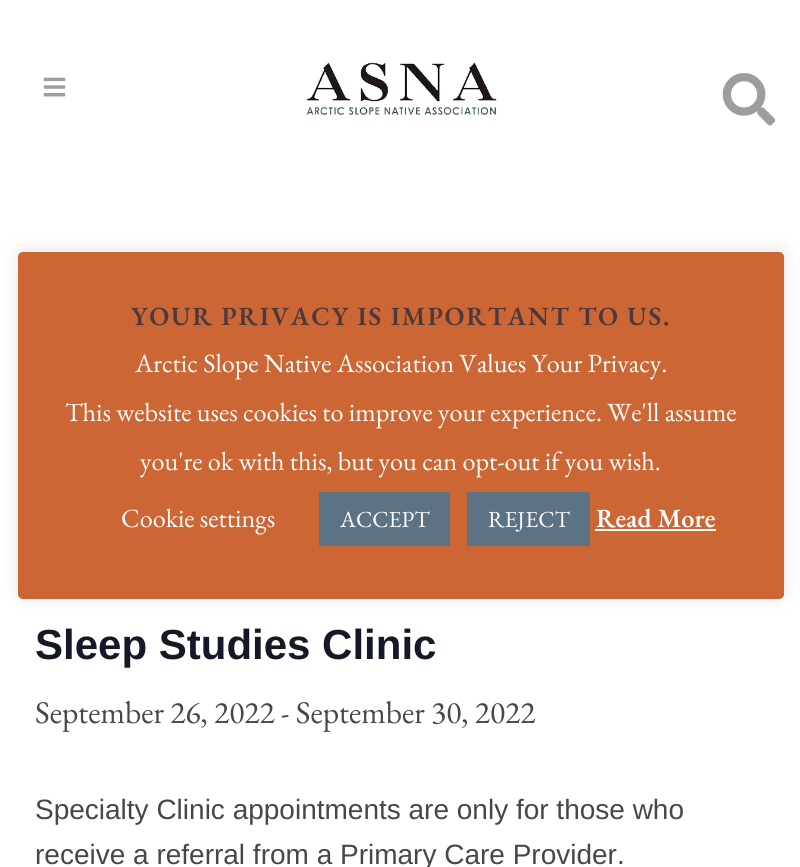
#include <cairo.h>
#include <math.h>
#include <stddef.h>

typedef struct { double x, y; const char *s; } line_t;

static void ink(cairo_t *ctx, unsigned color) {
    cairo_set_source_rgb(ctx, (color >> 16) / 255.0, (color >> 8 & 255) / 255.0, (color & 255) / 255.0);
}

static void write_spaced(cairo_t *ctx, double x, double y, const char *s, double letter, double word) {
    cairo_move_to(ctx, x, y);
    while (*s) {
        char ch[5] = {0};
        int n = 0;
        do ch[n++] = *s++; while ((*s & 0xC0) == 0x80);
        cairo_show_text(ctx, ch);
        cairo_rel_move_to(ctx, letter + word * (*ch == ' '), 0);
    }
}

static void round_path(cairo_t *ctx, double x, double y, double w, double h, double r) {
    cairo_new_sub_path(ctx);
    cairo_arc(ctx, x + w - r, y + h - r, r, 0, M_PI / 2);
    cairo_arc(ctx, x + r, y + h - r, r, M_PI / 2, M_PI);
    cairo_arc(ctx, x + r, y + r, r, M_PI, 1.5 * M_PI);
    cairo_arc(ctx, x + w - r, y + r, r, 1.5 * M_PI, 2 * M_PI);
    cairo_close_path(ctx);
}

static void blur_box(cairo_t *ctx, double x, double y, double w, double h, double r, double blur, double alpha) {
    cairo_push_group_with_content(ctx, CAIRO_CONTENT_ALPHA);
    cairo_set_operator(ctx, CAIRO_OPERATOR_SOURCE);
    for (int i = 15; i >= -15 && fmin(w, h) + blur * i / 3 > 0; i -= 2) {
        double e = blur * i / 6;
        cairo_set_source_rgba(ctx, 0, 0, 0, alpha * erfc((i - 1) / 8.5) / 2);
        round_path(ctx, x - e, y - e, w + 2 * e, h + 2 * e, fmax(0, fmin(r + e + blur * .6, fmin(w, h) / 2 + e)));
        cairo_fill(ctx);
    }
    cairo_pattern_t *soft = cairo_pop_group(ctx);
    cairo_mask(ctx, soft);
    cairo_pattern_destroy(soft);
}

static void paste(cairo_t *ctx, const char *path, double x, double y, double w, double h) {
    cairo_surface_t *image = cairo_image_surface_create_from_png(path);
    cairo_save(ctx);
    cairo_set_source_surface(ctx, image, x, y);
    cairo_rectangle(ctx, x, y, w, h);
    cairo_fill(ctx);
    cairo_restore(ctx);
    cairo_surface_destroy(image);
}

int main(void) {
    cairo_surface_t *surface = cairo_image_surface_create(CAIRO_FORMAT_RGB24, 800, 867);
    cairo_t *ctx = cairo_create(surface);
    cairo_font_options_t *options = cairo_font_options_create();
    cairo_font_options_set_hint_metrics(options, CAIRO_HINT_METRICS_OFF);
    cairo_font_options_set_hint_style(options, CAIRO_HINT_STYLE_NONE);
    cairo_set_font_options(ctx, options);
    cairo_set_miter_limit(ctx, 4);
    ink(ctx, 0xFFFFFF);
    cairo_paint(ctx);
    ink(ctx, 0xACABAB);
    blur_box(ctx, 18, 250, 766, 347, 5, 9, 0.3);
    ink(ctx, 0xCC6635);
    round_path(ctx, 18, 252, 766, 347, 5);
    cairo_fill(ctx);
    cairo_select_font_face(ctx, "EB Garamond SemiBold", CAIRO_FONT_SLANT_NORMAL, CAIRO_FONT_WEIGHT_NORMAL);
    cairo_set_font_size(ctx, 26.25);
    ink(ctx, 0x4B393B);
    write_spaced(ctx, 131, 325, "YOUR PRIVACY IS IMPORTANT TO US.", 1.75, 0);
    cairo_select_font_face(ctx, "EB Garamond", CAIRO_FONT_SLANT_NORMAL, CAIRO_FONT_WEIGHT_NORMAL);
    ink(ctx, 0xFFFFFF);
    {
        static const line_t items[] = {
            {135, 372, "Arctic Slope Native Association Values Your Privacy."},
            {65, 421, "This website uses cookies to improve your experience. We'll assume"},
            {140, 470, "you're ok with this, but you can opt-out if you wish."},
            {121, 527, "Cookie settings"},
        };
        for (size_t i = 0; i < sizeof items / sizeof *items; i++) {
            cairo_move_to(ctx, items[i].x, items[i].y);
            cairo_show_text(ctx, items[i].s);
        }
    }
    ink(ctx, 0x5C7285);
    cairo_rectangle(ctx, 319, 492, 131, 54);
    cairo_fill(ctx);
    cairo_set_font_size(ctx, 23);
    ink(ctx, 0xFFFFFF);
    cairo_move_to(ctx, 340, 527);
    cairo_show_text(ctx, "ACCEPT");
    ink(ctx, 0x5C7285);
    cairo_rectangle(ctx, 467, 492, 123, 54);
    cairo_fill(ctx);
    ink(ctx, 0xFFFFFF);
    cairo_move_to(ctx, 488, 527);
    cairo_show_text(ctx, "REJECT");
    cairo_select_font_face(ctx, "EB Garamond SemiBold", CAIRO_FONT_SLANT_NORMAL, CAIRO_FONT_WEIGHT_NORMAL);
    cairo_set_font_size(ctx, 26.25);
    cairo_move_to(ctx, 596, 527);
    cairo_show_text(ctx, "Read More");
    cairo_rectangle(ctx, 595, 529, 121, 2);
    cairo_fill(ctx);
    paste(ctx, "media/1.png", 43, 77, 23, 20);
    paste(ctx, "media/2.png", 306, 62, 191, 53);
    paste(ctx, "media/3.png", 722, 73, 54, 53);
    cairo_select_font_face(ctx, "Liberation Sans", CAIRO_FONT_SLANT_NORMAL, CAIRO_FONT_WEIGHT_BOLD);
    cairo_set_font_size(ctx, 42);
    ink(ctx, 0x141827);
    cairo_move_to(ctx, 35, 659);
    cairo_show_text(ctx, "Sleep Studies Clinic");
    cairo_select_font_face(ctx, "EB Garamond", CAIRO_FONT_SLANT_NORMAL, CAIRO_FONT_WEIGHT_NORMAL);
    cairo_set_font_size(ctx, 31.5);
    ink(ctx, 0x474747);
    cairo_move_to(ctx, 35, 723);
    cairo_show_text(ctx, "September 26, 2022 - September 30, 2022");
    cairo_select_font_face(ctx, "Liberation Sans", CAIRO_FONT_SLANT_NORMAL, CAIRO_FONT_WEIGHT_NORMAL);
    cairo_set_font_size(ctx, 28);
    cairo_move_to(ctx, 35, 819);
    cairo_show_text(ctx, "Specialty Clinic appointments are only for those who");
    cairo_move_to(ctx, 35, 864);
    cairo_show_text(ctx, "receive a referral from a Primary Care Provider.");
    cairo_surface_write_to_png(surface, "image.png");
    cairo_font_options_destroy(options);
    cairo_destroy(ctx);
    cairo_surface_destroy(surface);
    return 0;
}
